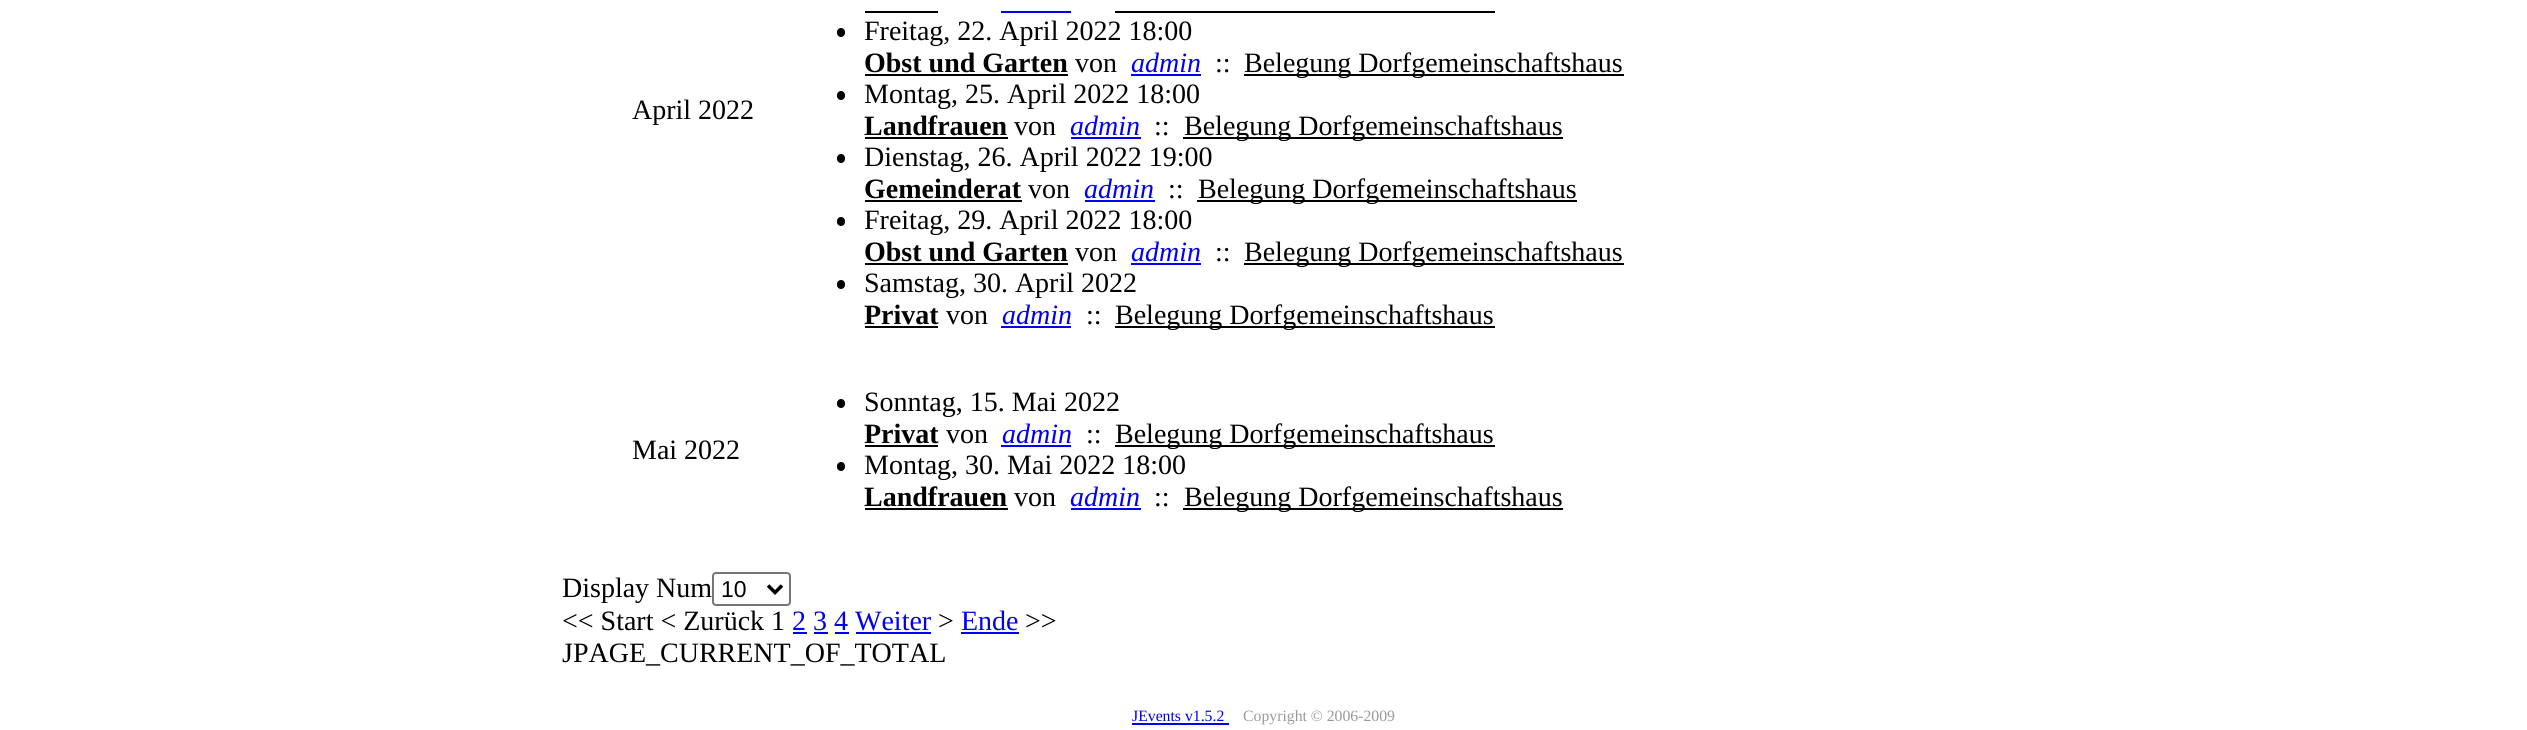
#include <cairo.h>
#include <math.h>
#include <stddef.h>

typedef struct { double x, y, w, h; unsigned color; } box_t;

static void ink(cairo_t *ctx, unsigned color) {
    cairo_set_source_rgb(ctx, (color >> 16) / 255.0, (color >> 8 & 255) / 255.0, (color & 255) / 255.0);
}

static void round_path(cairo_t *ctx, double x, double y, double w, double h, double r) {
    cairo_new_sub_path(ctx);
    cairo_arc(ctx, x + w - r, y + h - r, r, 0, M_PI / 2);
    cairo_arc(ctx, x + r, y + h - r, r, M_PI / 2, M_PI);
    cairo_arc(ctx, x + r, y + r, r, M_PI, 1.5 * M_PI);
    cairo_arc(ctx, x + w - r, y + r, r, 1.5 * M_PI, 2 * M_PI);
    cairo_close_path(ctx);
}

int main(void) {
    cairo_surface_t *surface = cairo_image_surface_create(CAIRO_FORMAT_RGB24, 2527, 730);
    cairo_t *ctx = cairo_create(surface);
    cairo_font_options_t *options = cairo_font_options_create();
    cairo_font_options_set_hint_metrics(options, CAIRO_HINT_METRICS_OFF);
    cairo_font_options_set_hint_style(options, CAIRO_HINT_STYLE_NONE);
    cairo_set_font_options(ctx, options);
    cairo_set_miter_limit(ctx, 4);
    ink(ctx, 0xFFFFFF);
    cairo_paint(ctx);
    cairo_select_font_face(ctx, "Liberation Serif", CAIRO_FONT_SLANT_NORMAL, CAIRO_FONT_WEIGHT_NORMAL);
    cairo_set_font_size(ctx, 28);
    ink(ctx, 0x000000);
    cairo_move_to(ctx, 632, 119);
    cairo_show_text(ctx, "April 2022");
    {
        static const box_t items[] = {
            {865, 11, 73, 2, 0x000000},
            {1001, 11, 70, 2, 0x0000EE},
            {1115, 11, 380, 2, 0x000000},
        };
        for (size_t i = 0; i < sizeof items / sizeof *items; i++) {
            ink(ctx, items[i].color);
            cairo_rectangle(ctx, items[i].x, items[i].y, items[i].w, items[i].h);
            cairo_fill(ctx);
        }
    }
    round_path(ctx, 837, 28, 8, 9, 4);
    cairo_fill(ctx);
    cairo_move_to(ctx, 864, 40);
    cairo_show_text(ctx, "Freitag, 22. April 2022 18:00");
    cairo_select_font_face(ctx, "Liberation Serif", CAIRO_FONT_SLANT_NORMAL, CAIRO_FONT_WEIGHT_BOLD);
    cairo_move_to(ctx, 864, 72);
    cairo_show_text(ctx, "Obst und Garten");
    cairo_rectangle(ctx, 865, 74, 203, 2);
    cairo_fill(ctx);
    cairo_select_font_face(ctx, "Liberation Serif", CAIRO_FONT_SLANT_NORMAL, CAIRO_FONT_WEIGHT_NORMAL);
    cairo_move_to(ctx, 1075, 72);
    cairo_show_text(ctx, "von");
    cairo_select_font_face(ctx, "Liberation Serif", CAIRO_FONT_SLANT_ITALIC, CAIRO_FONT_WEIGHT_NORMAL);
    ink(ctx, 0x0000EE);
    cairo_move_to(ctx, 1131, 72);
    cairo_show_text(ctx, "admin");
    cairo_rectangle(ctx, 1131, 74, 70, 2);
    cairo_fill(ctx);
    cairo_select_font_face(ctx, "Liberation Serif", CAIRO_FONT_SLANT_NORMAL, CAIRO_FONT_WEIGHT_NORMAL);
    ink(ctx, 0x000000);
    cairo_move_to(ctx, 1215, 72);
    cairo_show_text(ctx, "::");
    cairo_rectangle(ctx, 1244, 74, 380, 2);
    cairo_fill(ctx);
    cairo_move_to(ctx, 1244, 72);
    cairo_show_text(ctx, "Belegung Dorfgemeinschaftshaus");
    round_path(ctx, 837, 91, 8, 9, 4);
    cairo_fill(ctx);
    cairo_move_to(ctx, 864, 103);
    cairo_show_text(ctx, "Montag, 25. April 2022 18:00");
    cairo_select_font_face(ctx, "Liberation Serif", CAIRO_FONT_SLANT_NORMAL, CAIRO_FONT_WEIGHT_BOLD);
    cairo_move_to(ctx, 864, 135);
    cairo_show_text(ctx, "Landfrauen");
    cairo_rectangle(ctx, 865, 137, 143, 2);
    cairo_fill(ctx);
    cairo_select_font_face(ctx, "Liberation Serif", CAIRO_FONT_SLANT_NORMAL, CAIRO_FONT_WEIGHT_NORMAL);
    cairo_move_to(ctx, 1014, 135);
    cairo_show_text(ctx, "von");
    cairo_select_font_face(ctx, "Liberation Serif", CAIRO_FONT_SLANT_ITALIC, CAIRO_FONT_WEIGHT_NORMAL);
    ink(ctx, 0x0000EE);
    cairo_move_to(ctx, 1070, 135);
    cairo_show_text(ctx, "admin");
    cairo_rectangle(ctx, 1071, 137, 70, 2);
    cairo_fill(ctx);
    cairo_select_font_face(ctx, "Liberation Serif", CAIRO_FONT_SLANT_NORMAL, CAIRO_FONT_WEIGHT_NORMAL);
    ink(ctx, 0x000000);
    cairo_move_to(ctx, 1154, 135);
    cairo_show_text(ctx, "::");
    cairo_rectangle(ctx, 1183, 137, 380, 2);
    cairo_fill(ctx);
    cairo_move_to(ctx, 1184, 135);
    cairo_show_text(ctx, "Belegung Dorfgemeinschaftshaus");
    round_path(ctx, 837, 154, 8, 9, 4);
    cairo_fill(ctx);
    cairo_move_to(ctx, 864, 166);
    cairo_show_text(ctx, "Dienstag, 26. April 2022 19:00");
    cairo_select_font_face(ctx, "Liberation Serif", CAIRO_FONT_SLANT_NORMAL, CAIRO_FONT_WEIGHT_BOLD);
    cairo_move_to(ctx, 864, 198);
    cairo_show_text(ctx, "Gemeinderat");
    cairo_rectangle(ctx, 865, 200, 157, 2);
    cairo_fill(ctx);
    cairo_select_font_face(ctx, "Liberation Serif", CAIRO_FONT_SLANT_NORMAL, CAIRO_FONT_WEIGHT_NORMAL);
    cairo_move_to(ctx, 1028, 198);
    cairo_show_text(ctx, "von");
    cairo_select_font_face(ctx, "Liberation Serif", CAIRO_FONT_SLANT_ITALIC, CAIRO_FONT_WEIGHT_NORMAL);
    ink(ctx, 0x0000EE);
    cairo_move_to(ctx, 1084, 198);
    cairo_show_text(ctx, "admin");
    cairo_rectangle(ctx, 1085, 200, 70, 2);
    cairo_fill(ctx);
    cairo_select_font_face(ctx, "Liberation Serif", CAIRO_FONT_SLANT_NORMAL, CAIRO_FONT_WEIGHT_NORMAL);
    ink(ctx, 0x000000);
    cairo_move_to(ctx, 1168, 198);
    cairo_show_text(ctx, "::");
    cairo_rectangle(ctx, 1197, 200, 380, 2);
    cairo_fill(ctx);
    cairo_move_to(ctx, 1198, 198);
    cairo_show_text(ctx, "Belegung Dorfgemeinschaftshaus");
    round_path(ctx, 837, 217, 8, 9, 4);
    cairo_fill(ctx);
    cairo_move_to(ctx, 864, 229);
    cairo_show_text(ctx, "Freitag, 29. April 2022 18:00");
    cairo_select_font_face(ctx, "Liberation Serif", CAIRO_FONT_SLANT_NORMAL, CAIRO_FONT_WEIGHT_BOLD);
    cairo_move_to(ctx, 864, 261);
    cairo_show_text(ctx, "Obst und Garten");
    cairo_rectangle(ctx, 865, 263, 203, 2);
    cairo_fill(ctx);
    cairo_select_font_face(ctx, "Liberation Serif", CAIRO_FONT_SLANT_NORMAL, CAIRO_FONT_WEIGHT_NORMAL);
    cairo_move_to(ctx, 1075, 261);
    cairo_show_text(ctx, "von");
    cairo_select_font_face(ctx, "Liberation Serif", CAIRO_FONT_SLANT_ITALIC, CAIRO_FONT_WEIGHT_NORMAL);
    ink(ctx, 0x0000EE);
    cairo_move_to(ctx, 1131, 261);
    cairo_show_text(ctx, "admin");
    cairo_rectangle(ctx, 1131, 263, 70, 2);
    cairo_fill(ctx);
    cairo_select_font_face(ctx, "Liberation Serif", CAIRO_FONT_SLANT_NORMAL, CAIRO_FONT_WEIGHT_NORMAL);
    ink(ctx, 0x000000);
    cairo_move_to(ctx, 1215, 261);
    cairo_show_text(ctx, "::");
    cairo_rectangle(ctx, 1244, 263, 380, 2);
    cairo_fill(ctx);
    cairo_move_to(ctx, 1244, 261);
    cairo_show_text(ctx, "Belegung Dorfgemeinschaftshaus");
    round_path(ctx, 837, 280, 8, 9, 4);
    cairo_fill(ctx);
    cairo_move_to(ctx, 864, 292);
    cairo_show_text(ctx, "Samstag, 30. April 2022");
    cairo_select_font_face(ctx, "Liberation Serif", CAIRO_FONT_SLANT_NORMAL, CAIRO_FONT_WEIGHT_BOLD);
    cairo_move_to(ctx, 864, 324);
    cairo_show_text(ctx, "Privat");
    cairo_rectangle(ctx, 865, 326, 73, 2);
    cairo_fill(ctx);
    cairo_select_font_face(ctx, "Liberation Serif", CAIRO_FONT_SLANT_NORMAL, CAIRO_FONT_WEIGHT_NORMAL);
    cairo_move_to(ctx, 946, 324);
    cairo_show_text(ctx, "von");
    cairo_select_font_face(ctx, "Liberation Serif", CAIRO_FONT_SLANT_ITALIC, CAIRO_FONT_WEIGHT_NORMAL);
    ink(ctx, 0x0000EE);
    cairo_move_to(ctx, 1002, 324);
    cairo_show_text(ctx, "admin");
    cairo_rectangle(ctx, 1001, 326, 70, 2);
    cairo_fill(ctx);
    cairo_select_font_face(ctx, "Liberation Serif", CAIRO_FONT_SLANT_NORMAL, CAIRO_FONT_WEIGHT_NORMAL);
    ink(ctx, 0x000000);
    cairo_move_to(ctx, 1086, 324);
    cairo_show_text(ctx, "::");
    cairo_rectangle(ctx, 1115, 326, 380, 2);
    cairo_fill(ctx);
    cairo_move_to(ctx, 1115, 324);
    cairo_show_text(ctx, "Belegung Dorfgemeinschaftshaus");
    cairo_move_to(ctx, 632, 459);
    cairo_show_text(ctx, "Mai 2022");
    round_path(ctx, 837, 399, 8, 9, 4);
    cairo_fill(ctx);
    cairo_move_to(ctx, 864, 411);
    cairo_show_text(ctx, "Sonntag, 15. Mai 2022");
    cairo_select_font_face(ctx, "Liberation Serif", CAIRO_FONT_SLANT_NORMAL, CAIRO_FONT_WEIGHT_BOLD);
    cairo_move_to(ctx, 864, 443);
    cairo_show_text(ctx, "Privat");
    cairo_rectangle(ctx, 865, 445, 73, 2);
    cairo_fill(ctx);
    cairo_select_font_face(ctx, "Liberation Serif", CAIRO_FONT_SLANT_NORMAL, CAIRO_FONT_WEIGHT_NORMAL);
    cairo_move_to(ctx, 946, 443);
    cairo_show_text(ctx, "von");
    cairo_select_font_face(ctx, "Liberation Serif", CAIRO_FONT_SLANT_ITALIC, CAIRO_FONT_WEIGHT_NORMAL);
    ink(ctx, 0x0000EE);
    cairo_move_to(ctx, 1002, 443);
    cairo_show_text(ctx, "admin");
    cairo_rectangle(ctx, 1001, 445, 70, 2);
    cairo_fill(ctx);
    cairo_select_font_face(ctx, "Liberation Serif", CAIRO_FONT_SLANT_NORMAL, CAIRO_FONT_WEIGHT_NORMAL);
    ink(ctx, 0x000000);
    cairo_move_to(ctx, 1086, 443);
    cairo_show_text(ctx, "::");
    cairo_rectangle(ctx, 1115, 445, 380, 2);
    cairo_fill(ctx);
    cairo_move_to(ctx, 1115, 443);
    cairo_show_text(ctx, "Belegung Dorfgemeinschaftshaus");
    round_path(ctx, 837, 462, 8, 9, 4);
    cairo_fill(ctx);
    cairo_move_to(ctx, 864, 474);
    cairo_show_text(ctx, "Montag, 30. Mai 2022 18:00");
    cairo_select_font_face(ctx, "Liberation Serif", CAIRO_FONT_SLANT_NORMAL, CAIRO_FONT_WEIGHT_BOLD);
    cairo_move_to(ctx, 864, 506);
    cairo_show_text(ctx, "Landfrauen");
    cairo_rectangle(ctx, 865, 508, 143, 2);
    cairo_fill(ctx);
    cairo_select_font_face(ctx, "Liberation Serif", CAIRO_FONT_SLANT_NORMAL, CAIRO_FONT_WEIGHT_NORMAL);
    cairo_move_to(ctx, 1014, 506);
    cairo_show_text(ctx, "von");
    cairo_select_font_face(ctx, "Liberation Serif", CAIRO_FONT_SLANT_ITALIC, CAIRO_FONT_WEIGHT_NORMAL);
    ink(ctx, 0x0000EE);
    cairo_move_to(ctx, 1070, 506);
    cairo_show_text(ctx, "admin");
    cairo_rectangle(ctx, 1071, 508, 70, 2);
    cairo_fill(ctx);
    cairo_select_font_face(ctx, "Liberation Serif", CAIRO_FONT_SLANT_NORMAL, CAIRO_FONT_WEIGHT_NORMAL);
    ink(ctx, 0x000000);
    cairo_move_to(ctx, 1154, 506);
    cairo_show_text(ctx, "::");
    cairo_rectangle(ctx, 1183, 508, 380, 2);
    cairo_fill(ctx);
    cairo_move_to(ctx, 1184, 506);
    cairo_show_text(ctx, "Belegung Dorfgemeinschaftshaus");
    cairo_move_to(ctx, 562, 597);
    cairo_show_text(ctx, "Display Num");
    round_path(ctx, 713, 573, 77, 32, 3);
    ink(ctx, 0x767676);
    cairo_stroke(ctx);
    cairo_new_path(ctx);
    cairo_move_to(ctx, 768, 585.5);
    cairo_line_to(ctx, 775, 592.5);
    cairo_line_to(ctx, 782, 585.5);
    ink(ctx, 0x000000);
    cairo_set_line_width(ctx, 3.5);
    cairo_stroke(ctx);
    cairo_select_font_face(ctx, "Liberation Sans", CAIRO_FONT_SLANT_NORMAL, CAIRO_FONT_WEIGHT_NORMAL);
    cairo_set_font_size(ctx, 23);
    cairo_move_to(ctx, 721, 597);
    cairo_show_text(ctx, "10");
    cairo_select_font_face(ctx, "Liberation Serif", CAIRO_FONT_SLANT_NORMAL, CAIRO_FONT_WEIGHT_NORMAL);
    cairo_set_font_size(ctx, 28);
    cairo_move_to(ctx, 562, 630);
    cairo_show_text(ctx, "<< Start < Zurück 1");
    ink(ctx, 0x0000EE);
    cairo_move_to(ctx, 792, 630);
    cairo_show_text(ctx, "2 3 4 Weiter");
    cairo_rectangle(ctx, 793, 632, 14, 2);
    cairo_fill(ctx);
    ink(ctx, 0x000000);
    cairo_move_to(ctx, 938, 630);
    cairo_show_text(ctx, ">");
    ink(ctx, 0x0000EE);
    cairo_move_to(ctx, 961, 630);
    cairo_show_text(ctx, "Ende");
    cairo_rectangle(ctx, 961, 632, 58, 2);
    cairo_fill(ctx);
    ink(ctx, 0x000000);
    cairo_move_to(ctx, 1025, 630);
    cairo_show_text(ctx, ">>");
    {
        static const box_t items[] = {
            {814, 632, 14, 2, 0x0000EE},
            {835, 632, 14, 2, 0x0000EE},
            {856, 632, 75, 2, 0x0000EE},
        };
        for (size_t i = 0; i < sizeof items / sizeof *items; i++) {
            ink(ctx, items[i].color);
            cairo_rectangle(ctx, items[i].x, items[i].y, items[i].w, items[i].h);
            cairo_fill(ctx);
        }
    }
    ink(ctx, 0x000000);
    cairo_move_to(ctx, 562, 662);
    cairo_show_text(ctx, "JPAGE_CURRENT_OF_TOTAL");
    cairo_set_font_size(ctx, 15.75);
    ink(ctx, 0x0000EE);
    cairo_move_to(ctx, 1132, 721);
    cairo_show_text(ctx, "JEvents v1.5.2");
    cairo_rectangle(ctx, 1132, 723, 97, 2);
    cairo_fill(ctx);
    ink(ctx, 0x999999);
    cairo_move_to(ctx, 1243, 721);
    cairo_show_text(ctx, "Copyright © 2006-2009");
    cairo_surface_write_to_png(surface, "image.png");
    cairo_font_options_destroy(options);
    cairo_destroy(ctx);
    cairo_surface_destroy(surface);
    return 0;
}
